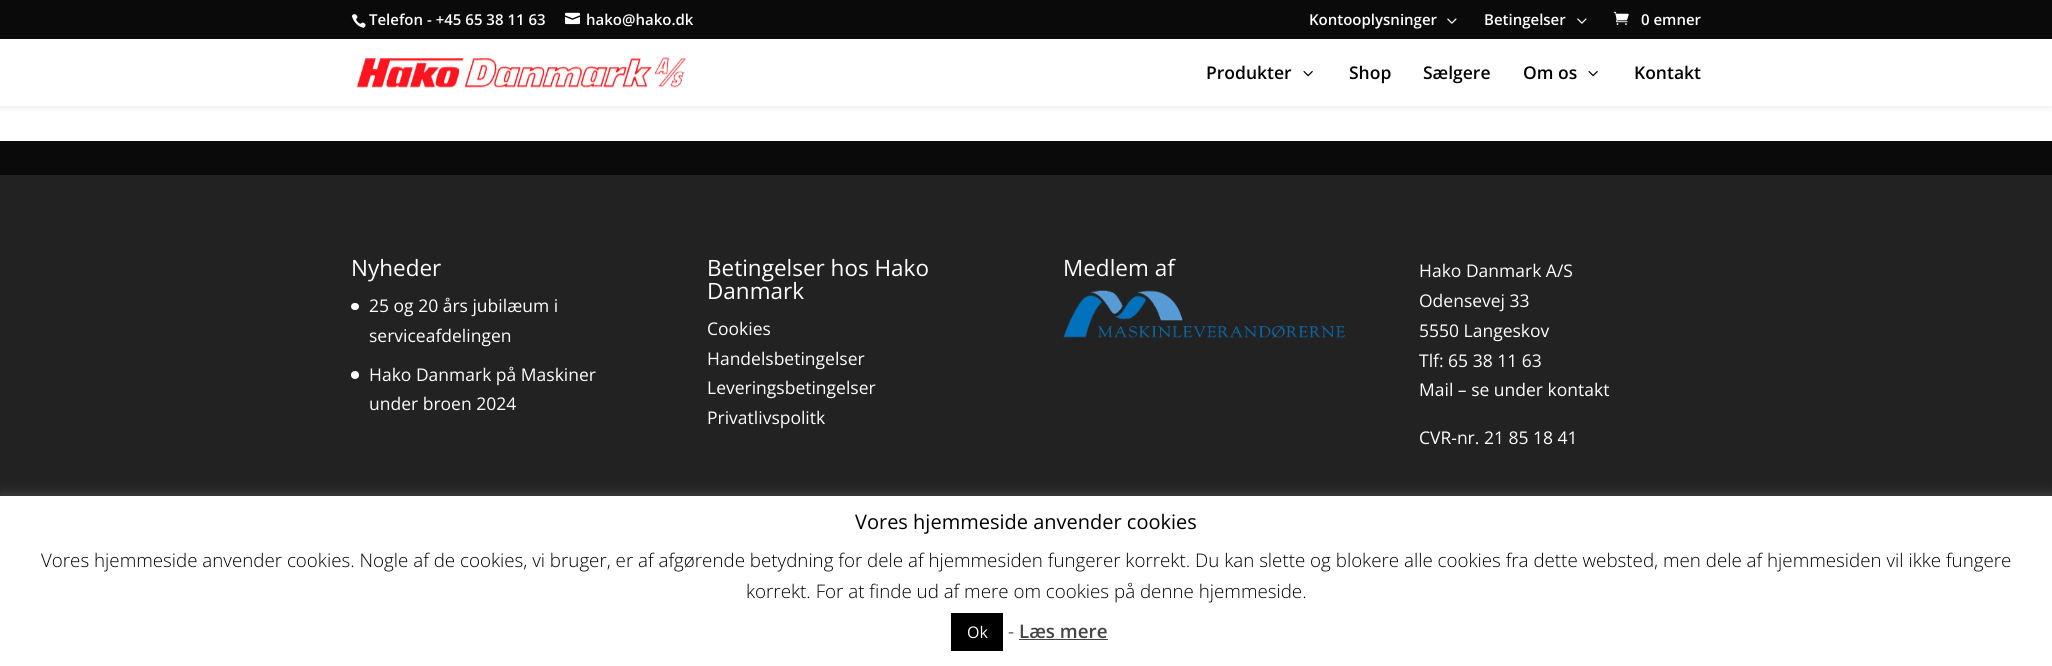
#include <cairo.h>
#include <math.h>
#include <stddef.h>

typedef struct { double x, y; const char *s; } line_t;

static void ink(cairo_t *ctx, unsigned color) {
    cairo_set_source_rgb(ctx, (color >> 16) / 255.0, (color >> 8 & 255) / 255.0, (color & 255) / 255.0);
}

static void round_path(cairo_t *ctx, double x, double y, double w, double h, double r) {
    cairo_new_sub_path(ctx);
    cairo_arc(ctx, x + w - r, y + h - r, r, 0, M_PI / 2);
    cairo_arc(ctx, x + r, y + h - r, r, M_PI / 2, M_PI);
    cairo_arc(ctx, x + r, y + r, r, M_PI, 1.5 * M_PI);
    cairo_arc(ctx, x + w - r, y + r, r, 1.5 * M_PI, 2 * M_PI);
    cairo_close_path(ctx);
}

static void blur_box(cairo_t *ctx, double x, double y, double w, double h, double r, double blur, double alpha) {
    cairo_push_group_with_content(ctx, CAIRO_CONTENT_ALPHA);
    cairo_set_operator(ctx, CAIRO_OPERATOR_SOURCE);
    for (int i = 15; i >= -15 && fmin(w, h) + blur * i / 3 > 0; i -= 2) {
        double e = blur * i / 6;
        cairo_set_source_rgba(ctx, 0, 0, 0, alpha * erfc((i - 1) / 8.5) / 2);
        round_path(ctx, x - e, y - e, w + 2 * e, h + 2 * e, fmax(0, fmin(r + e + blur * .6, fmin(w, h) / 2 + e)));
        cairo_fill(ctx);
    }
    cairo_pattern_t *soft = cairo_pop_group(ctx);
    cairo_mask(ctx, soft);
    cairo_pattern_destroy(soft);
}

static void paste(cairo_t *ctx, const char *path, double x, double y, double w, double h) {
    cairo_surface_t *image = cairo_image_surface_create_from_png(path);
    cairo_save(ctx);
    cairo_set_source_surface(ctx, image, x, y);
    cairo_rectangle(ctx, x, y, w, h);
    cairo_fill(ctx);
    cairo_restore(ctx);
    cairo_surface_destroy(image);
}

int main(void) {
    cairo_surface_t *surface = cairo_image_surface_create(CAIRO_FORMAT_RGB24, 2052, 666);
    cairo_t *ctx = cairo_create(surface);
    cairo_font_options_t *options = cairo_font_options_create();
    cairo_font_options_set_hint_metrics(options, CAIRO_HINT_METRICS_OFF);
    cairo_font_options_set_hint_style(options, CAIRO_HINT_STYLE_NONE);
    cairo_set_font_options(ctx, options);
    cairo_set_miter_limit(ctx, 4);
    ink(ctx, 0x0A0A0A);
    cairo_paint(ctx);
    ink(ctx, 0xFFFFFF);
    cairo_rectangle(ctx, 0, 106, 2052, 35);
    cairo_fill(ctx);
    ink(ctx, 0x000000);
    blur_box(ctx, 0, 39, 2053, 67, 0, 4.5, 0.1);
    paste(ctx, "media/1.png", 351, 14, 15, 14);
    cairo_select_font_face(ctx, "Open Sans SemiBold", CAIRO_FONT_SLANT_NORMAL, CAIRO_FONT_WEIGHT_NORMAL);
    cairo_set_font_size(ctx, 15);
    ink(ctx, 0xFFFFFF);
    cairo_move_to(ctx, 369, 25);
    cairo_show_text(ctx, "Telefon - +45 65 38 11 63");
    paste(ctx, "media/2.png", 565, 12, 15, 13);
    cairo_move_to(ctx, 586, 25);
    cairo_show_text(ctx, "hako@hako.dk");
    cairo_move_to(ctx, 1309, 25);
    cairo_show_text(ctx, "Kontooplysninger");
    paste(ctx, "media/3.png", 1447, 18, 10, 6);
    cairo_move_to(ctx, 1484, 25);
    cairo_show_text(ctx, "Betingelser");
    paste(ctx, "media/3.png", 1577, 18, 10, 6);
    paste(ctx, "media/4.png", 1613, 11, 16, 14);
    cairo_move_to(ctx, 1641, 25);
    cairo_show_text(ctx, "0 emner");
    cairo_rectangle(ctx, 0, 39, 2052, 67);
    cairo_fill(ctx);
    paste(ctx, "media/5.png", 357, 57, 329, 31);
    cairo_set_font_size(ctx, 17.5);
    ink(ctx, 0x000000);
    cairo_move_to(ctx, 1206, 79);
    cairo_show_text(ctx, "Produkter");
    paste(ctx, "media/6.png", 1303, 71, 10, 6);
    {
        static const line_t items[] = {
            {1349, 79, "Shop"},
            {1423, 79, "Sælgere"},
            {1523, 79, "Om os"},
        };
        for (size_t i = 0; i < sizeof items / sizeof *items; i++) {
            cairo_move_to(ctx, items[i].x, items[i].y);
            cairo_show_text(ctx, items[i].s);
        }
    }
    paste(ctx, "media/6.png", 1588, 71, 10, 6);
    cairo_move_to(ctx, 1634, 79);
    cairo_show_text(ctx, "Kontakt");
    ink(ctx, 0x222222);
    cairo_rectangle(ctx, 0, 175, 2052, 321);
    cairo_fill(ctx);
    cairo_select_font_face(ctx, "Open Sans", CAIRO_FONT_SLANT_NORMAL, CAIRO_FONT_WEIGHT_NORMAL);
    cairo_set_font_size(ctx, 22.5);
    ink(ctx, 0xFFFFFF);
    cairo_move_to(ctx, 351, 276);
    cairo_show_text(ctx, "Nyheder");
    round_path(ctx, 351, 303, 8, 7, 3.5);
    cairo_fill(ctx);
    cairo_set_font_size(ctx, 17.5);
    cairo_move_to(ctx, 369, 312);
    cairo_show_text(ctx, "25 og 20 års jubilæum i");
    cairo_move_to(ctx, 369, 342);
    cairo_show_text(ctx, "serviceafdelingen");
    cairo_new_path(ctx);
    cairo_arc(ctx, 355, 375, 4, 0, 2 * M_PI);
    cairo_fill(ctx);
    cairo_move_to(ctx, 369, 381);
    cairo_show_text(ctx, "Hako Danmark på Maskiner");
    cairo_move_to(ctx, 369, 410);
    cairo_show_text(ctx, "under broen 2024");
    cairo_set_font_size(ctx, 22.5);
    cairo_move_to(ctx, 707, 276);
    cairo_show_text(ctx, "Betingelser hos Hako");
    cairo_move_to(ctx, 707, 299);
    cairo_show_text(ctx, "Danmark");
    cairo_set_font_size(ctx, 17.5);
    {
        static const line_t items[] = {
            {707, 335, "Cookies"},
            {707, 365, "Handelsbetingelser"},
            {707, 394, "Leveringsbetingelser"},
            {707, 424, "Privatlivspolitk"},
        };
        for (size_t i = 0; i < sizeof items / sizeof *items; i++) {
            cairo_move_to(ctx, items[i].x, items[i].y);
            cairo_show_text(ctx, items[i].s);
        }
    }
    cairo_set_font_size(ctx, 22.5);
    cairo_move_to(ctx, 1063, 276);
    cairo_show_text(ctx, "Medlem af");
    paste(ctx, "media/7.png", 1063, 290, 282, 49);
    cairo_set_font_size(ctx, 17.5);
    {
        static const line_t items[] = {
            {1419, 277, "Hako Danmark A/S"},
            {1419, 307, "Odensevej 33"},
            {1419, 337, "5550 Langeskov"},
            {1419, 367, "Tlf: 65 38 11 63"},
            {1419, 396, "Mail – se under kontakt"},
            {1419, 444, "CVR-nr. 21 85 18 41"},
        };
        for (size_t i = 0; i < sizeof items / sizeof *items; i++) {
            cairo_move_to(ctx, items[i].x, items[i].y);
            cairo_show_text(ctx, items[i].s);
        }
    }
    ink(ctx, 0xACABAB);
    blur_box(ctx, 0, 495, 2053, 170, 0, 6, 0.3);
    ink(ctx, 0xFFFFFF);
    cairo_rectangle(ctx, 0, 496, 2052, 170);
    cairo_fill(ctx);
    cairo_set_font_size(ctx, 20);
    ink(ctx, 0x000000);
    cairo_move_to(ctx, 855, 529);
    cairo_show_text(ctx, "Vores hjemmeside anvender cookies");
    cairo_select_font_face(ctx, "Open Sans Light", CAIRO_FONT_SLANT_NORMAL, CAIRO_FONT_WEIGHT_NORMAL);
    cairo_set_font_size(ctx, 18.75);
    cairo_move_to(ctx, 41, 567);
    cairo_show_text(ctx, "Vores hjemmeside anvender cookies. Nogle af de cookies, vi bruger, er af afgørende betydning for dele af hjemmesiden fungerer korrekt. Du kan slette og blokere alle cookies fra dette websted, men dele af hjemmesiden vil ikke fungere");
    cairo_move_to(ctx, 746, 598);
    cairo_show_text(ctx, "korrekt. For at finde ud af mere om cookies på denne hjemmeside.");
    cairo_rectangle(ctx, 951, 613, 52, 38);
    cairo_fill(ctx);
    cairo_select_font_face(ctx, "Open Sans", CAIRO_FONT_SLANT_NORMAL, CAIRO_FONT_WEIGHT_NORMAL);
    cairo_set_font_size(ctx, 16);
    ink(ctx, 0xFFFFFF);
    cairo_move_to(ctx, 967, 638);
    cairo_show_text(ctx, "Ok");
    cairo_select_font_face(ctx, "Open Sans Light", CAIRO_FONT_SLANT_NORMAL, CAIRO_FONT_WEIGHT_NORMAL);
    cairo_set_font_size(ctx, 18.75);
    ink(ctx, 0x000000);
    cairo_move_to(ctx, 1008, 638);
    cairo_show_text(ctx, "-");
    cairo_select_font_face(ctx, "Open Sans SemiBold", CAIRO_FONT_SLANT_NORMAL, CAIRO_FONT_WEIGHT_NORMAL);
    ink(ctx, 0x444444);
    cairo_move_to(ctx, 1019, 638);
    cairo_show_text(ctx, "Læs mere");
    cairo_rectangle(ctx, 1019, 639, 89, 1);
    cairo_fill(ctx);
    cairo_surface_write_to_png(surface, "image.png");
    cairo_font_options_destroy(options);
    cairo_destroy(ctx);
    cairo_surface_destroy(surface);
    return 0;
}
